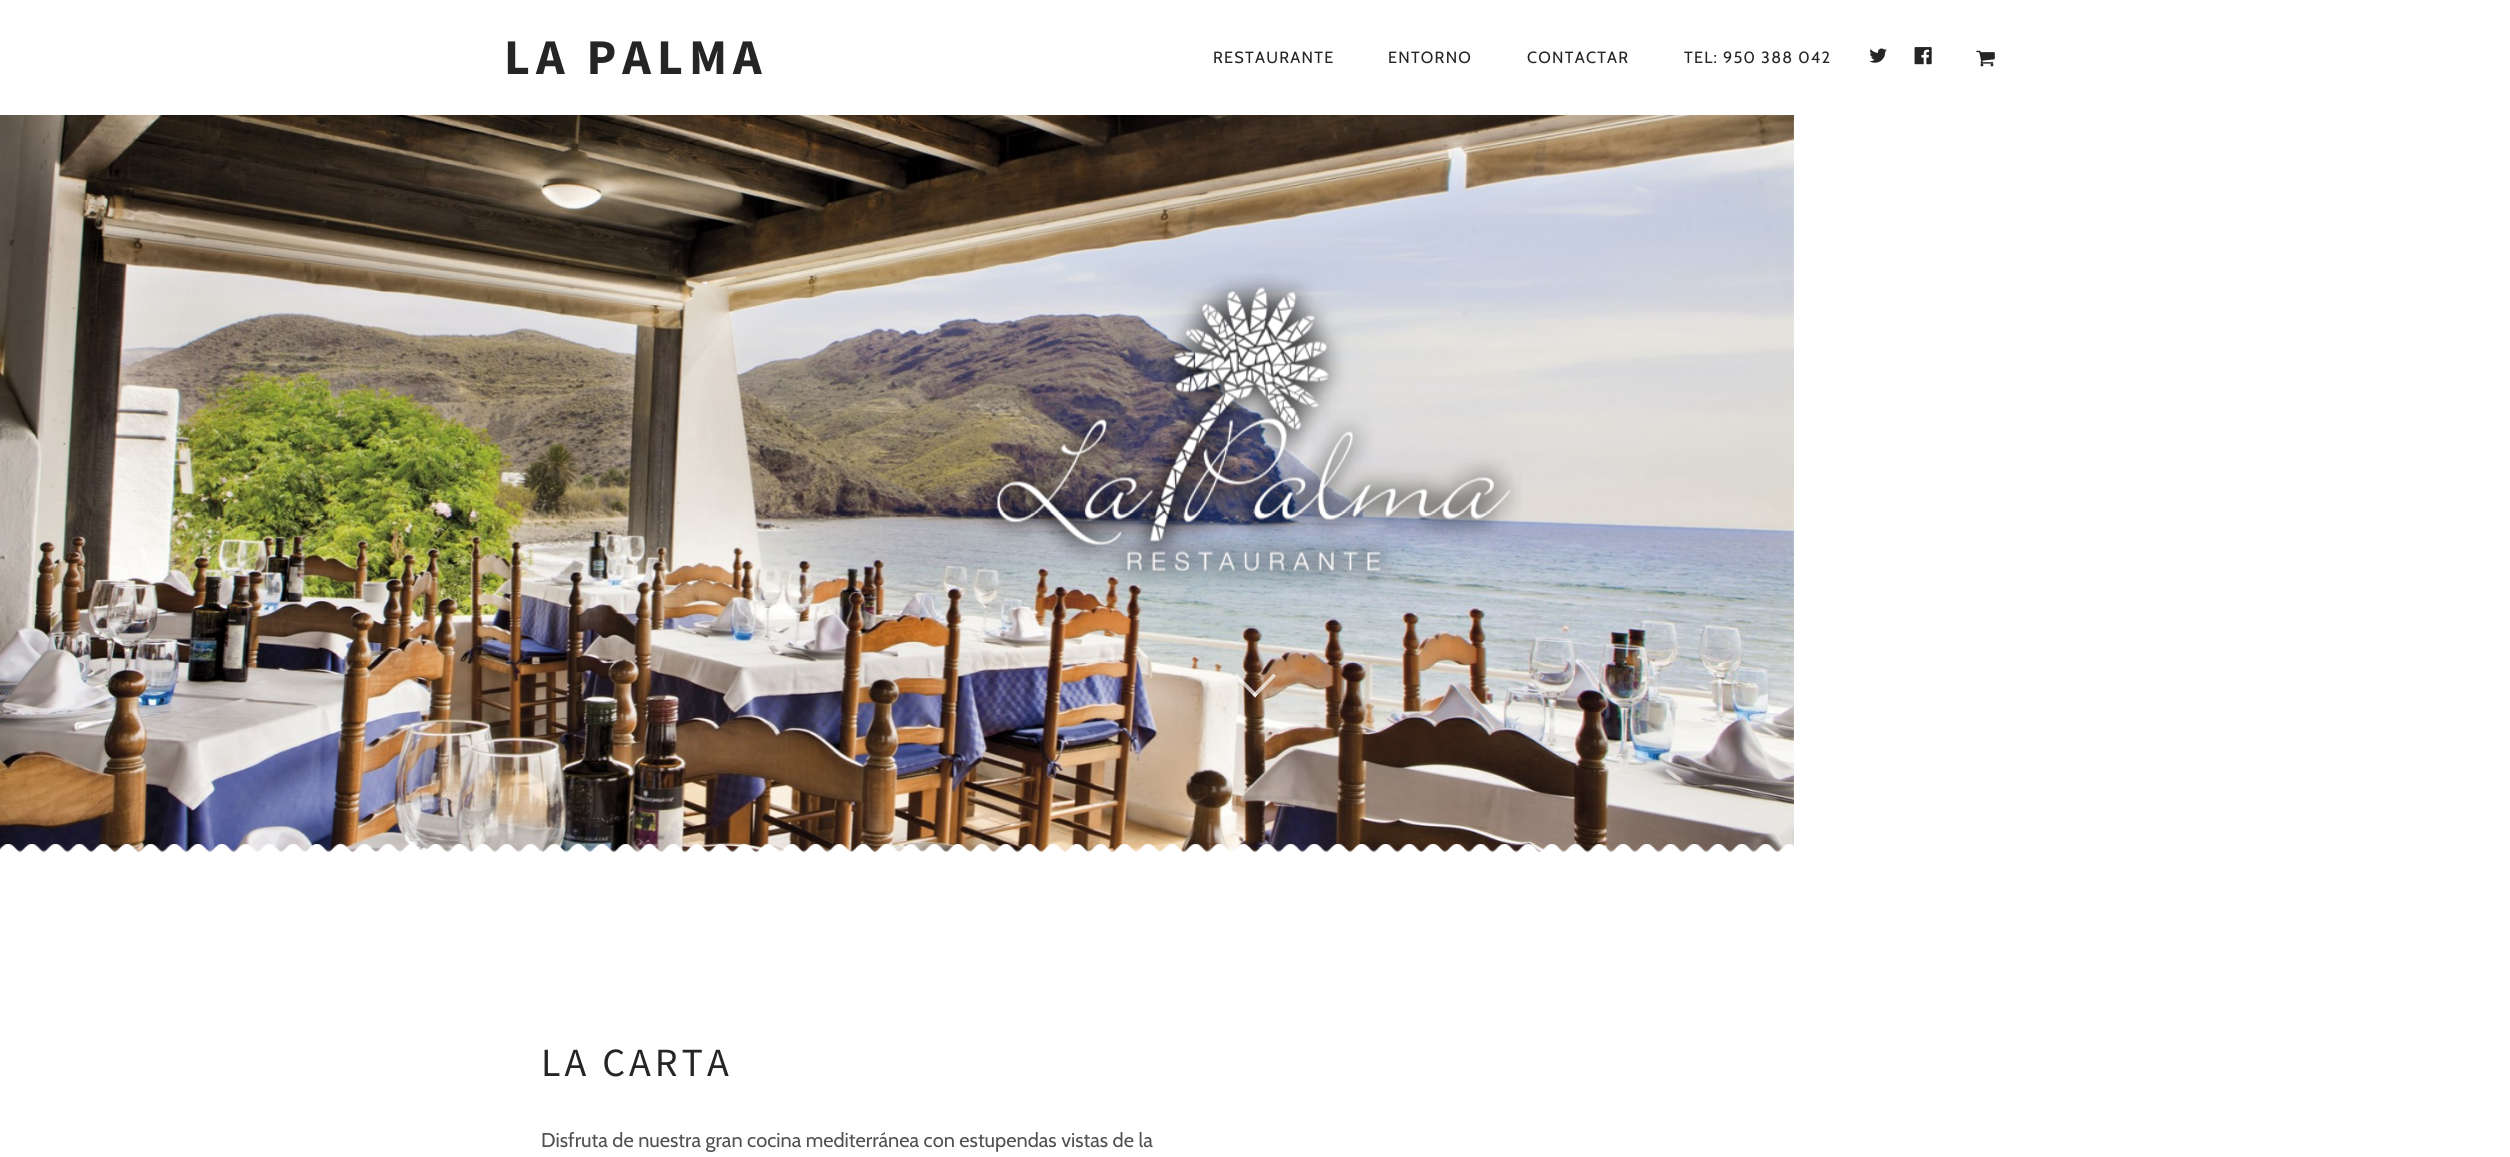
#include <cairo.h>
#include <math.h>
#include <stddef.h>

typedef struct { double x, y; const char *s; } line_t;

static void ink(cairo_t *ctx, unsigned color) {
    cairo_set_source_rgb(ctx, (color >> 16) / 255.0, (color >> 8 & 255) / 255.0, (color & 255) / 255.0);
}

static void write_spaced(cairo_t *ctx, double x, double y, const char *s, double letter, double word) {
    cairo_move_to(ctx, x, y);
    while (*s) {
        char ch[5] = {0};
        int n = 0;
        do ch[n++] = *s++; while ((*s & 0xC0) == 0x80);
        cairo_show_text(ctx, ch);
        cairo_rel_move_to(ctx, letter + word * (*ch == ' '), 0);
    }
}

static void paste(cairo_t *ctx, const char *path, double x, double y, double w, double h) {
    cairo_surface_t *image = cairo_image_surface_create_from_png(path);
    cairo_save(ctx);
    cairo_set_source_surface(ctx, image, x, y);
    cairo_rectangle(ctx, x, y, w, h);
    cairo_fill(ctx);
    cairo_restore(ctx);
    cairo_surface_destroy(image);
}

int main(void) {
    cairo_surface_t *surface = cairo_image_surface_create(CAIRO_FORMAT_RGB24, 2510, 1157);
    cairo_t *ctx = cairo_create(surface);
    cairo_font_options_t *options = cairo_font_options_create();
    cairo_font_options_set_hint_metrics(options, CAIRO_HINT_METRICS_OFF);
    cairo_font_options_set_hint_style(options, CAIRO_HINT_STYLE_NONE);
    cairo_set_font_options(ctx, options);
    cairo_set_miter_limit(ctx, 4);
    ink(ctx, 0xFFFFFF);
    cairo_paint(ctx);
    cairo_select_font_face(ctx, "Source Sans Pro", CAIRO_FONT_SLANT_NORMAL, CAIRO_FONT_WEIGHT_BOLD);
    cairo_set_font_size(ctx, 50);
    ink(ctx, 0x262526);
    write_spaced(ctx, 504, 74, "LA PALMA", 6, 0);
    cairo_select_font_face(ctx, "Cabin", CAIRO_FONT_SLANT_NORMAL, CAIRO_FONT_WEIGHT_NORMAL);
    cairo_set_font_size(ctx, 16.25);
    {
        static const line_t items[] = {
            {1213, 63, "RESTAURANTE"},
            {1388, 63, "ENTORNO"},
            {1527, 63, "CONTACTAR"},
            {1684, 63, "TEL: 950 388 042"},
        };
        for (size_t i = 0; i < sizeof items / sizeof *items; i++) {
            write_spaced(ctx, items[i].x, items[i].y, items[i].s, 1.25, 0);
        }
    }
    paste(ctx, "media/1.png", 1869, 48, 18, 15);
    paste(ctx, "media/2.png", 1914, 47, 18, 18);
    paste(ctx, "media/3.png", 1976, 50, 19, 17);
    paste(ctx, "media/4.png", 0, 115, 1794, 738);
    paste(ctx, "media/5.png", 982, 273, 540, 314);
    cairo_set_source_rgba(ctx, 1, 1, 1, 0.7);
    cairo_new_path(ctx);
    cairo_move_to(ctx, 1273.5, 673.5);
    cairo_line_to(ctx, 1276, 676);
    cairo_line_to(ctx, 1255, 697.5);
    cairo_line_to(ctx, 1252.5, 694.5);
    cairo_close_path(ctx);
    cairo_fill(ctx);
    cairo_new_path(ctx);
    cairo_move_to(ctx, 1236.5, 673.5);
    cairo_line_to(ctx, 1257.5, 694.5);
    cairo_line_to(ctx, 1255, 697.5);
    cairo_line_to(ctx, 1234, 676);
    cairo_close_path(ctx);
    cairo_fill(ctx);
    paste(ctx, "media/6.png", 0, 844, 1794, 9);
    cairo_select_font_face(ctx, "Source Sans Pro", CAIRO_FONT_SLANT_NORMAL, CAIRO_FONT_WEIGHT_NORMAL);
    cairo_set_font_size(ctx, 40);
    ink(ctx, 0x262526);
    write_spaced(ctx, 541, 1076, "LA CARTA", 4, 0);
    cairo_select_font_face(ctx, "Cabin", CAIRO_FONT_SLANT_NORMAL, CAIRO_FONT_WEIGHT_NORMAL);
    cairo_set_font_size(ctx, 20);
    ink(ctx, 0x515150);
    cairo_move_to(ctx, 541, 1147);
    cairo_show_text(ctx, "Disfruta de nuestra gran cocina mediterránea con estupendas vistas de la");
    cairo_surface_write_to_png(surface, "image.png");
    cairo_font_options_destroy(options);
    cairo_destroy(ctx);
    cairo_surface_destroy(surface);
    return 0;
}
